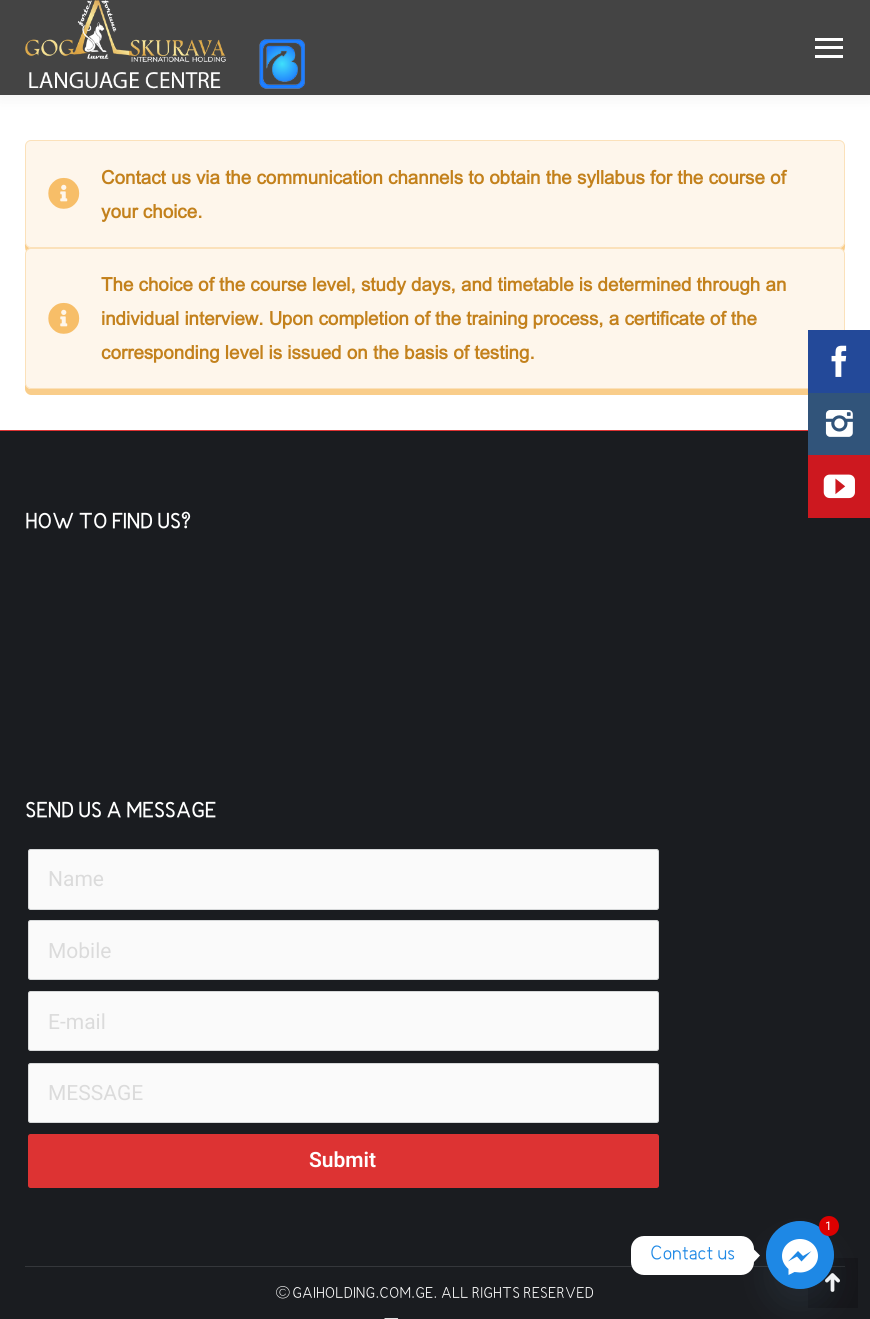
#include <cairo.h>
#include <math.h>
#include <stddef.h>

typedef struct { double x, y; const char *s; } line_t;
typedef struct { double x, y, w, h; unsigned color; } box_t;

static void ink(cairo_t *ctx, unsigned color) {
    cairo_set_source_rgb(ctx, (color >> 16) / 255.0, (color >> 8 & 255) / 255.0, (color & 255) / 255.0);
}

static void round_path(cairo_t *ctx, double x, double y, double w, double h, double r) {
    cairo_new_sub_path(ctx);
    cairo_arc(ctx, x + w - r, y + h - r, r, 0, M_PI / 2);
    cairo_arc(ctx, x + r, y + h - r, r, M_PI / 2, M_PI);
    cairo_arc(ctx, x + r, y + r, r, M_PI, 1.5 * M_PI);
    cairo_arc(ctx, x + w - r, y + r, r, 1.5 * M_PI, 2 * M_PI);
    cairo_close_path(ctx);
}

static void blur_box(cairo_t *ctx, double x, double y, double w, double h, double r, double blur, double alpha) {
    cairo_push_group_with_content(ctx, CAIRO_CONTENT_ALPHA);
    cairo_set_operator(ctx, CAIRO_OPERATOR_SOURCE);
    for (int i = 15; i >= -15 && fmin(w, h) + blur * i / 3 > 0; i -= 2) {
        double e = blur * i / 6;
        cairo_set_source_rgba(ctx, 0, 0, 0, alpha * erfc((i - 1) / 8.5) / 2);
        round_path(ctx, x - e, y - e, w + 2 * e, h + 2 * e, fmax(0, fmin(r + e + blur * .6, fmin(w, h) / 2 + e)));
        cairo_fill(ctx);
    }
    cairo_pattern_t *soft = cairo_pop_group(ctx);
    cairo_mask(ctx, soft);
    cairo_pattern_destroy(soft);
}

static void paste(cairo_t *ctx, const char *path, double x, double y, double w, double h) {
    cairo_surface_t *image = cairo_image_surface_create_from_png(path);
    cairo_save(ctx);
    cairo_set_source_surface(ctx, image, x, y);
    cairo_rectangle(ctx, x, y, w, h);
    cairo_fill(ctx);
    cairo_restore(ctx);
    cairo_surface_destroy(image);
}

int main(void) {
    cairo_surface_t *surface = cairo_image_surface_create(CAIRO_FORMAT_RGB24, 870, 1319);
    cairo_t *ctx = cairo_create(surface);
    cairo_font_options_t *options = cairo_font_options_create();
    cairo_font_options_set_hint_metrics(options, CAIRO_HINT_METRICS_OFF);
    cairo_font_options_set_hint_style(options, CAIRO_HINT_STYLE_NONE);
    cairo_set_font_options(ctx, options);
    cairo_set_miter_limit(ctx, 4);
    ink(ctx, 0xFFFFFF);
    cairo_paint(ctx);
    ink(ctx, 0x000000);
    blur_box(ctx, -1, -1, 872, 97, 0, 9.5, 0.07);
    ink(ctx, 0x444444);
    cairo_rectangle(ctx, 0, 0, 870, 95);
    cairo_fill(ctx);
    paste(ctx, "media/1.png", 25, 0, 280, 89);
    {
        static const box_t items[] = {
            {815, 38, 28, 3, 0xFFFFFF},
            {815, 46, 28, 3, 0xFFFFFF},
            {815, 55, 28, 3, 0xFFFFFF},
        };
        for (size_t i = 0; i < sizeof items / sizeof *items; i++) {
            ink(ctx, items[i].color);
            cairo_rectangle(ctx, items[i].x, items[i].y, items[i].w, items[i].h);
            cairo_fill(ctx);
        }
    }
    ink(ctx, 0xF9CD8A);
    cairo_new_path(ctx);
    cairo_move_to(ctx, 25, 241);
    cairo_curve_to(ctx, 25, 246, 24, 254, 31, 254);
    cairo_line_to(ctx, 840, 254);
    cairo_curve_to(ctx, 846, 253, 845, 246, 845, 241);
    cairo_curve_to(ctx, 845, 245, 842, 248, 839, 248);
    cairo_line_to(ctx, 31, 248);
    cairo_curve_to(ctx, 28, 248, 25, 245, 25, 241);
    cairo_close_path(ctx);
    cairo_fill(ctx);
    ink(ctx, 0xFEF6EB);
    round_path(ctx, 25.5, 140.5, 819, 107, 5.5);
    cairo_fill_preserve(ctx);
    ink(ctx, 0xFBE1BA);
    cairo_set_line_width(ctx, 1);
    cairo_stroke(ctx);
    paste(ctx, "media/2.png", 48, 177, 32, 32);
    cairo_select_font_face(ctx, "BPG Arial", CAIRO_FONT_SLANT_NORMAL, CAIRO_FONT_WEIGHT_BOLD);
    cairo_set_font_size(ctx, 18.75);
    ink(ctx, 0xC3811C);
    cairo_move_to(ctx, 101, 184);
    cairo_show_text(ctx, "Contact us via the communication channels to obtain the syllabus for the course of");
    cairo_move_to(ctx, 101, 218);
    cairo_show_text(ctx, "your choice.");
    ink(ctx, 0xF9CD8A);
    cairo_new_path(ctx);
    cairo_move_to(ctx, 25, 382);
    cairo_line_to(ctx, 25, 389);
    cairo_curve_to(ctx, 25, 392, 28, 395, 31, 395);
    cairo_line_to(ctx, 839, 395);
    cairo_curve_to(ctx, 842, 395, 845, 392, 845, 389);
    cairo_line_to(ctx, 845, 382);
    cairo_curve_to(ctx, 845, 386, 842, 389, 839, 389);
    cairo_line_to(ctx, 31, 389);
    cairo_curve_to(ctx, 28, 389, 25, 386, 25, 382);
    cairo_close_path(ctx);
    cairo_fill(ctx);
    ink(ctx, 0xFEF6EB);
    round_path(ctx, 25.5, 248.5, 819, 140, 5.5);
    cairo_fill_preserve(ctx);
    ink(ctx, 0xFBE1BA);
    cairo_stroke(ctx);
    paste(ctx, "media/2.png", 48, 302, 32, 32);
    ink(ctx, 0xC3811C);
    {
        static const line_t items[] = {
            {101, 291, "The choice of the course level, study days, and timetable is determined through an"},
            {101, 325, "individual interview. Upon completion of the training process, a certificate of the"},
            {101, 359, "corresponding level is issued on the basis of testing."},
        };
        for (size_t i = 0; i < sizeof items / sizeof *items; i++) {
            cairo_move_to(ctx, items[i].x, items[i].y);
            cairo_show_text(ctx, items[i].s);
        }
    }
    ink(ctx, 0x1A1C20);
    cairo_rectangle(ctx, 0, 431, 870, 888);
    cairo_fill(ctx);
    ink(ctx, 0xDD3333);
    cairo_rectangle(ctx, 0, 430, 808, 1);
    cairo_fill(ctx);
    cairo_select_font_face(ctx, "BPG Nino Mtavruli", CAIRO_FONT_SLANT_ITALIC, CAIRO_FONT_WEIGHT_BOLD);
    cairo_set_font_size(ctx, 22.5);
    ink(ctx, 0xFFFFFF);
    cairo_move_to(ctx, 25, 530);
    cairo_show_text(ctx, "HOW TO FIND US?");
    cairo_move_to(ctx, 25, 819);
    cairo_show_text(ctx, "SEND US A MESSAGE");
    ink(ctx, 0xFAFAFA);
    round_path(ctx, 28.5, 849.5, 630, 60, 2);
    cairo_fill_preserve(ctx);
    ink(ctx, 0xD6D8D9);
    cairo_stroke(ctx);
    cairo_select_font_face(ctx, "Roboto", CAIRO_FONT_SLANT_NORMAL, CAIRO_FONT_WEIGHT_NORMAL);
    cairo_set_font_size(ctx, 21);
    ink(ctx, 0xDBDBDB);
    cairo_move_to(ctx, 48, 886);
    cairo_show_text(ctx, "Name");
    ink(ctx, 0xFAFAFA);
    round_path(ctx, 28.5, 920.5, 630, 59, 2);
    cairo_fill_preserve(ctx);
    ink(ctx, 0xD6D8D9);
    cairo_stroke(ctx);
    ink(ctx, 0xDBDBDB);
    cairo_move_to(ctx, 48, 958);
    cairo_show_text(ctx, "Mobile");
    ink(ctx, 0xFAFAFA);
    round_path(ctx, 28.5, 991.5, 630, 59, 2);
    cairo_fill_preserve(ctx);
    ink(ctx, 0xD6D8D9);
    cairo_stroke(ctx);
    ink(ctx, 0xDBDBDB);
    cairo_move_to(ctx, 48, 1029);
    cairo_show_text(ctx, "E-mail");
    ink(ctx, 0xFAFAFA);
    round_path(ctx, 28.5, 1063.5, 630, 59, 2);
    cairo_fill_preserve(ctx);
    ink(ctx, 0xD6D8D9);
    cairo_stroke(ctx);
    ink(ctx, 0xDBDBDB);
    cairo_move_to(ctx, 48, 1100);
    cairo_show_text(ctx, "MESSAGE");
    ink(ctx, 0xDD3333);
    round_path(ctx, 28, 1134, 631, 54, 2.5);
    cairo_fill(ctx);
    cairo_select_font_face(ctx, "Roboto SemiBold", CAIRO_FONT_SLANT_NORMAL, CAIRO_FONT_WEIGHT_NORMAL);
    ink(ctx, 0xFFFFFF);
    cairo_move_to(ctx, 309, 1167);
    cairo_show_text(ctx, "Submit");
    ink(ctx, 0x35373B);
    cairo_rectangle(ctx, 25, 1266, 820, 1);
    cairo_fill(ctx);
    cairo_select_font_face(ctx, "BPG Nino Mtavruli", CAIRO_FONT_SLANT_ITALIC, CAIRO_FONT_WEIGHT_NORMAL);
    cairo_set_font_size(ctx, 16.25);
    ink(ctx, 0xFFFFFF);
    cairo_move_to(ctx, 276, 1299);
    cairo_show_text(ctx, "© GAIHOLDING.COM.GE. ALL RIGHTS RESERVED");
    paste(ctx, "media/3.png", 384, 1318, 15, 1);
    cairo_set_source_rgba(ctx, 0, 0, 0, 0.2);
    cairo_rectangle(ctx, 808, 1258, 50, 50);
    cairo_fill(ctx);
    paste(ctx, "media/4.png", 825, 1273, 15, 19);
    ink(ctx, 0x234999);
    cairo_rectangle(ctx, 808, 330, 62, 63);
    cairo_fill(ctx);
    paste(ctx, "media/5.png", 831, 345, 16, 32);
    ink(ctx, 0x31547A);
    cairo_rectangle(ctx, 808, 393, 62, 62);
    cairo_fill(ctx);
    paste(ctx, "media/6.png", 825, 410, 28, 27);
    ink(ctx, 0xCD181F);
    cairo_rectangle(ctx, 808, 455, 62, 63);
    cairo_fill(ctx);
    paste(ctx, "media/7.png", 823, 474, 32, 25);
    ink(ctx, 0x49687E);
    blur_box(ctx, 766, 1241, 68, 68, 34, 15, 0.16);
    ink(ctx, 0x1E88E5);
    cairo_arc(ctx, 800, 1255, 34, 0, 2 * M_PI);
    cairo_fill(ctx);
    cairo_arc(ctx, 800, 1255, 33.5, 0, 2 * M_PI);
    cairo_fill(ctx);
    ink(ctx, 0xDD0000);
    cairo_arc(ctx, 829, 1226, 10, 0, 2 * M_PI);
    cairo_fill(ctx);
    cairo_select_font_face(ctx, "Roboto", CAIRO_FONT_SLANT_NORMAL, CAIRO_FONT_WEIGHT_NORMAL);
    cairo_set_font_size(ctx, 12);
    ink(ctx, 0xFFFFFF);
    cairo_move_to(ctx, 825, 1230);
    cairo_show_text(ctx, "1");
    round_path(ctx, 631, 1236, 123, 39, 13);
    cairo_fill(ctx);
    cairo_select_font_face(ctx, "BPG Nino Mtavruli", CAIRO_FONT_SLANT_ITALIC, CAIRO_FONT_WEIGHT_NORMAL);
    cairo_set_font_size(ctx, 21.25);
    ink(ctx, 0x1E88E5);
    cairo_move_to(ctx, 650, 1261);
    cairo_show_text(ctx, "Contact us");
    ink(ctx, 0xFFFFFF);
    cairo_new_path(ctx);
    cairo_move_to(ctx, 754, 1262);
    cairo_line_to(ctx, 754, 1249.5);
    cairo_line_to(ctx, 760, 1255.5);
    cairo_close_path(ctx);
    cairo_fill(ctx);
    cairo_set_fill_rule(ctx, CAIRO_FILL_RULE_EVEN_ODD);
    cairo_new_path(ctx);
    cairo_move_to(ctx, 782, 1256);
    cairo_curve_to(ctx, 782, 1246.5, 790, 1239, 800, 1239);
    cairo_curve_to(ctx, 810, 1239, 818, 1246.5, 818, 1256);
    cairo_curve_to(ctx, 818, 1265, 810, 1272.5, 800, 1272.5);
    cairo_curve_to(ctx, 798, 1272.5, 796.5, 1272, 794.5, 1272);
    cairo_line_to(ctx, 788.5, 1275);
    cairo_line_to(ctx, 788.5, 1269);
    cairo_curve_to(ctx, 784.5, 1265.5, 782, 1261, 782, 1256);
    cairo_close_path(ctx);
    cairo_move_to(ctx, 797, 1256.5);
    cairo_line_to(ctx, 801.5, 1261.5);
    cairo_line_to(ctx, 811.5, 1251);
    cairo_line_to(ctx, 803, 1256);
    cairo_line_to(ctx, 798, 1251);
    cairo_line_to(ctx, 788, 1261.5);
    cairo_close_path(ctx);
    cairo_fill(ctx);
    cairo_surface_write_to_png(surface, "image.png");
    cairo_font_options_destroy(options);
    cairo_destroy(ctx);
    cairo_surface_destroy(surface);
    return 0;
}
